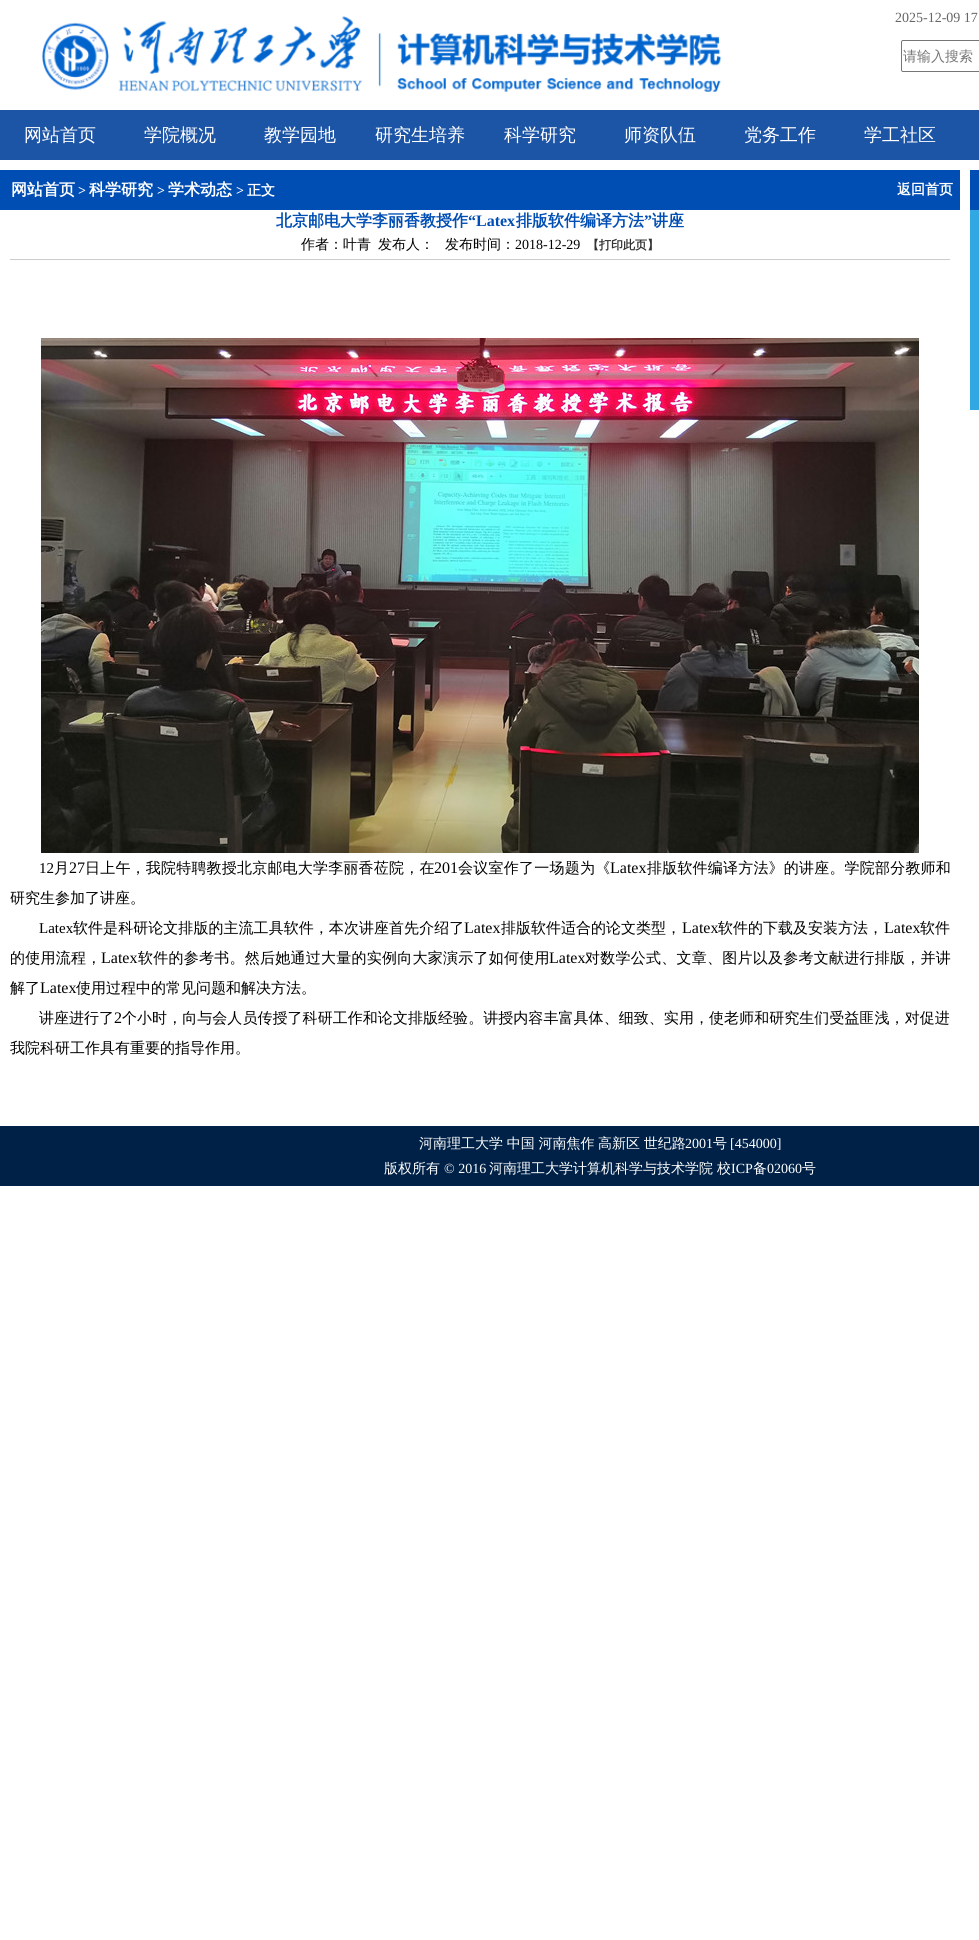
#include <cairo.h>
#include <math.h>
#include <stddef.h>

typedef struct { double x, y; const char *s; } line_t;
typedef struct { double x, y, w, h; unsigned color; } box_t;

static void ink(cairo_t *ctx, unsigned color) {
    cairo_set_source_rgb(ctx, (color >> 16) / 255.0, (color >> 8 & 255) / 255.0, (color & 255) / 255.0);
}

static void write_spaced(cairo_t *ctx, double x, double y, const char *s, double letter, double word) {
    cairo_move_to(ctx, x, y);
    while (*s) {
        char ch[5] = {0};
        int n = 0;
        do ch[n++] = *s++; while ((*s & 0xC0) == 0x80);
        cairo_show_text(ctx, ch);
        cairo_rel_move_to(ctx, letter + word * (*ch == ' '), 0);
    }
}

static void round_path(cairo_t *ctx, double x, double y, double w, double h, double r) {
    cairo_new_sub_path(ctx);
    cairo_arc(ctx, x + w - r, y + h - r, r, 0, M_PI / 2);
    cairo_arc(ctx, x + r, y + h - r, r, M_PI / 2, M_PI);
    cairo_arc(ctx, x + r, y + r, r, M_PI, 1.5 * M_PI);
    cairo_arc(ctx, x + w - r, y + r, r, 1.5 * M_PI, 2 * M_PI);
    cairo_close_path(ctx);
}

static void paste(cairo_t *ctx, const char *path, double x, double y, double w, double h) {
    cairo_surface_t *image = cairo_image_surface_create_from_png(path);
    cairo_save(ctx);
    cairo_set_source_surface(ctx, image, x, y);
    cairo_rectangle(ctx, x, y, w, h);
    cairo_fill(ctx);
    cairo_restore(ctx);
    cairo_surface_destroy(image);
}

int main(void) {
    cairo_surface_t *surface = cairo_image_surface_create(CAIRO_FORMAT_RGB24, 979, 1940);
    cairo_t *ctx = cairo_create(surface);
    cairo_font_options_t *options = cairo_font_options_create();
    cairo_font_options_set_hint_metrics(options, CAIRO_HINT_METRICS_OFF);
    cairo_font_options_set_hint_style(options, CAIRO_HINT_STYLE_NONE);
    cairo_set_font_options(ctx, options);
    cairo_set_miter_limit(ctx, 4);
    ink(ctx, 0xFFFFFF);
    cairo_paint(ctx);
    paste(ctx, "media/1.png", 42, 16, 680, 76);
    cairo_select_font_face(ctx, "Liberation Serif", CAIRO_FONT_SLANT_NORMAL, CAIRO_FONT_WEIGHT_NORMAL);
    cairo_set_font_size(ctx, 14);
    ink(ctx, 0x666666);
    cairo_move_to(ctx, 895, 22);
    cairo_show_text(ctx, "2025-12-09 17");
    round_path(ctx, 901.5, 40.5, 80, 31, 1.5);
    ink(ctx, 0x767676);
    cairo_set_line_width(ctx, 1);
    cairo_stroke(ctx);
    cairo_select_font_face(ctx, "WenQuanYi Zen Hei Medium", CAIRO_FONT_SLANT_NORMAL, CAIRO_FONT_WEIGHT_NORMAL);
    ink(ctx, 0x757575);
    cairo_move_to(ctx, 903, 61);
    cairo_show_text(ctx, "请输入搜索");
    ink(ctx, 0x1C54A6);
    cairo_rectangle(ctx, 0, 110, 979, 50);
    cairo_fill(ctx);
    cairo_set_font_size(ctx, 18);
    ink(ctx, 0xFFFFFF);
    {
        static const line_t items[] = {
            {24, 141, "网站首页"},
            {144, 141, "学院概况"},
            {264, 141, "教学园地"},
            {375, 141, "研究生培养"},
            {504, 141, "科学研究"},
            {624, 141, "师资队伍"},
            {744, 141, "党务工作"},
            {864, 141, "学工社区"},
        };
        for (size_t i = 0; i < sizeof items / sizeof *items; i++) {
            cairo_move_to(ctx, items[i].x, items[i].y);
            cairo_show_text(ctx, items[i].s);
        }
    }
    ink(ctx, 0x004EB3);
    cairo_rectangle(ctx, 0, 170, 960, 40);
    cairo_fill(ctx);
    cairo_select_font_face(ctx, "WenQuanYi Zen Hei", CAIRO_FONT_SLANT_NORMAL, CAIRO_FONT_WEIGHT_BOLD);
    cairo_set_font_size(ctx, 16);
    ink(ctx, 0xFFFFFF);
    cairo_move_to(ctx, 11, 195);
    cairo_show_text(ctx, "网站首页");
    cairo_select_font_face(ctx, "Liberation Serif", CAIRO_FONT_SLANT_NORMAL, CAIRO_FONT_WEIGHT_BOLD);
    cairo_set_font_size(ctx, 14);
    cairo_move_to(ctx, 78, 195);
    cairo_show_text(ctx, ">");
    cairo_select_font_face(ctx, "WenQuanYi Zen Hei", CAIRO_FONT_SLANT_NORMAL, CAIRO_FONT_WEIGHT_BOLD);
    cairo_set_font_size(ctx, 16);
    cairo_move_to(ctx, 89, 195);
    cairo_show_text(ctx, "科学研究");
    cairo_select_font_face(ctx, "Liberation Serif", CAIRO_FONT_SLANT_NORMAL, CAIRO_FONT_WEIGHT_BOLD);
    cairo_set_font_size(ctx, 14);
    cairo_move_to(ctx, 157, 195);
    cairo_show_text(ctx, ">");
    cairo_select_font_face(ctx, "WenQuanYi Zen Hei", CAIRO_FONT_SLANT_NORMAL, CAIRO_FONT_WEIGHT_BOLD);
    cairo_set_font_size(ctx, 16);
    cairo_move_to(ctx, 168, 195);
    cairo_show_text(ctx, "学术动态");
    cairo_select_font_face(ctx, "Liberation Serif", CAIRO_FONT_SLANT_NORMAL, CAIRO_FONT_WEIGHT_BOLD);
    cairo_set_font_size(ctx, 14);
    cairo_move_to(ctx, 236, 195);
    cairo_show_text(ctx, ">");
    cairo_select_font_face(ctx, "WenQuanYi Zen Hei", CAIRO_FONT_SLANT_NORMAL, CAIRO_FONT_WEIGHT_BOLD);
    cairo_move_to(ctx, 247, 195);
    cairo_show_text(ctx, "正文");
    cairo_move_to(ctx, 897, 194);
    cairo_show_text(ctx, "返回首页");
    cairo_set_font_size(ctx, 16);
    ink(ctx, 0x004EB3);
    cairo_move_to(ctx, 276, 226);
    cairo_show_text(ctx, "北京邮电大学李丽香教授作");
    cairo_select_font_face(ctx, "Liberation Serif", CAIRO_FONT_SLANT_NORMAL, CAIRO_FONT_WEIGHT_BOLD);
    cairo_move_to(ctx, 468, 226);
    cairo_show_text(ctx, "“Latex");
    cairo_select_font_face(ctx, "WenQuanYi Zen Hei", CAIRO_FONT_SLANT_NORMAL, CAIRO_FONT_WEIGHT_BOLD);
    cairo_move_to(ctx, 516, 226);
    cairo_show_text(ctx, "排版软件编译方法");
    cairo_select_font_face(ctx, "Liberation Serif", CAIRO_FONT_SLANT_NORMAL, CAIRO_FONT_WEIGHT_BOLD);
    cairo_move_to(ctx, 644, 226);
    cairo_show_text(ctx, "”");
    cairo_select_font_face(ctx, "WenQuanYi Zen Hei", CAIRO_FONT_SLANT_NORMAL, CAIRO_FONT_WEIGHT_BOLD);
    cairo_move_to(ctx, 652, 226);
    cairo_show_text(ctx, "讲座");
    ink(ctx, 0xCCCCCC);
    cairo_rectangle(ctx, 10, 259, 940, 1);
    cairo_fill(ctx);
    cairo_select_font_face(ctx, "WenQuanYi Zen Hei Medium", CAIRO_FONT_SLANT_NORMAL, CAIRO_FONT_WEIGHT_NORMAL);
    cairo_set_font_size(ctx, 14);
    ink(ctx, 0x000000);
    {
        static const line_t items[] = {
            {301, 249, "作者：叶青"},
            {378, 249, "发布人："},
            {445, 249, "发布时间："},
        };
        for (size_t i = 0; i < sizeof items / sizeof *items; i++) {
            cairo_move_to(ctx, items[i].x, items[i].y);
            cairo_show_text(ctx, items[i].s);
        }
    }
    cairo_select_font_face(ctx, "Liberation Serif", CAIRO_FONT_SLANT_NORMAL, CAIRO_FONT_WEIGHT_NORMAL);
    cairo_move_to(ctx, 515, 249);
    cairo_show_text(ctx, "2018-12-29");
    cairo_select_font_face(ctx, "WenQuanYi Zen Hei", CAIRO_FONT_SLANT_NORMAL, CAIRO_FONT_WEIGHT_BOLD);
    cairo_set_font_size(ctx, 12);
    ink(ctx, 0x333333);
    cairo_move_to(ctx, 587, 249);
    cairo_show_text(ctx, "【打印此页】");
    paste(ctx, "media/2.png", 41, 338, 878, 515);
    cairo_select_font_face(ctx, "Liberation Serif", CAIRO_FONT_SLANT_NORMAL, CAIRO_FONT_WEIGHT_NORMAL);
    cairo_set_font_size(ctx, 15);
    ink(ctx, 0x000000);
    cairo_move_to(ctx, 39, 873);
    cairo_show_text(ctx, "12");
    cairo_select_font_face(ctx, "WenQuanYi Zen Hei Medium", CAIRO_FONT_SLANT_NORMAL, CAIRO_FONT_WEIGHT_NORMAL);
    cairo_move_to(ctx, 54, 873);
    cairo_show_text(ctx, "月");
    cairo_select_font_face(ctx, "Liberation Serif", CAIRO_FONT_SLANT_NORMAL, CAIRO_FONT_WEIGHT_NORMAL);
    cairo_set_font_size(ctx, 16);
    cairo_move_to(ctx, 69, 873);
    cairo_show_text(ctx, "27");
    cairo_select_font_face(ctx, "WenQuanYi Zen Hei Medium", CAIRO_FONT_SLANT_NORMAL, CAIRO_FONT_WEIGHT_NORMAL);
    cairo_set_font_size(ctx, 15);
    write_spaced(ctx, 85, 873, "日上午，我院特聘教授北京邮电大学李丽香莅院，在", 0.2, 0);
    cairo_select_font_face(ctx, "Liberation Serif", CAIRO_FONT_SLANT_NORMAL, CAIRO_FONT_WEIGHT_NORMAL);
    cairo_set_font_size(ctx, 16);
    cairo_move_to(ctx, 434, 873);
    cairo_show_text(ctx, "201");
    cairo_select_font_face(ctx, "WenQuanYi Zen Hei Medium", CAIRO_FONT_SLANT_NORMAL, CAIRO_FONT_WEIGHT_NORMAL);
    cairo_set_font_size(ctx, 15);
    write_spaced(ctx, 458, 873, "会议室作了一场题为《", 0.25, 0);
    cairo_select_font_face(ctx, "Liberation Serif", CAIRO_FONT_SLANT_NORMAL, CAIRO_FONT_WEIGHT_NORMAL);
    cairo_set_font_size(ctx, 16);
    cairo_move_to(ctx, 610, 873);
    cairo_show_text(ctx, "Latex");
    cairo_select_font_face(ctx, "WenQuanYi Zen Hei Medium", CAIRO_FONT_SLANT_NORMAL, CAIRO_FONT_WEIGHT_NORMAL);
    cairo_set_font_size(ctx, 15);
    write_spaced(ctx, 647, 873, "排版软件编译方法》的讲座。学院部分教师和", 0.2, 0);
    cairo_move_to(ctx, 10, 903);
    cairo_show_text(ctx, "研究生参加了讲座。");
    cairo_select_font_face(ctx, "Liberation Serif", CAIRO_FONT_SLANT_NORMAL, CAIRO_FONT_WEIGHT_NORMAL);
    cairo_move_to(ctx, 39, 933);
    cairo_show_text(ctx, "Latex");
    cairo_select_font_face(ctx, "WenQuanYi Zen Hei Medium", CAIRO_FONT_SLANT_NORMAL, CAIRO_FONT_WEIGHT_NORMAL);
    write_spaced(ctx, 73, 933, "软件是科研论文排版的主流工具软件，本次讲座首先介绍了", 0.05, 0);
    cairo_select_font_face(ctx, "Liberation Serif", CAIRO_FONT_SLANT_NORMAL, CAIRO_FONT_WEIGHT_NORMAL);
    cairo_set_font_size(ctx, 16);
    cairo_move_to(ctx, 464, 933);
    cairo_show_text(ctx, "Latex");
    cairo_select_font_face(ctx, "WenQuanYi Zen Hei Medium", CAIRO_FONT_SLANT_NORMAL, CAIRO_FONT_WEIGHT_NORMAL);
    cairo_set_font_size(ctx, 15);
    cairo_move_to(ctx, 501, 933);
    cairo_show_text(ctx, "排版软件适合的论文类型，");
    cairo_select_font_face(ctx, "Liberation Serif", CAIRO_FONT_SLANT_NORMAL, CAIRO_FONT_WEIGHT_NORMAL);
    cairo_set_font_size(ctx, 16);
    cairo_move_to(ctx, 682, 933);
    cairo_show_text(ctx, "Latex");
    cairo_select_font_face(ctx, "WenQuanYi Zen Hei Medium", CAIRO_FONT_SLANT_NORMAL, CAIRO_FONT_WEIGHT_NORMAL);
    cairo_set_font_size(ctx, 15);
    cairo_move_to(ctx, 718, 933);
    cairo_show_text(ctx, "软件的下载及安装方法，");
    cairo_select_font_face(ctx, "Liberation Serif", CAIRO_FONT_SLANT_NORMAL, CAIRO_FONT_WEIGHT_NORMAL);
    cairo_set_font_size(ctx, 16);
    cairo_move_to(ctx, 884, 933);
    cairo_show_text(ctx, "Latex");
    cairo_select_font_face(ctx, "WenQuanYi Zen Hei Medium", CAIRO_FONT_SLANT_NORMAL, CAIRO_FONT_WEIGHT_NORMAL);
    cairo_set_font_size(ctx, 15);
    cairo_move_to(ctx, 920, 933);
    cairo_show_text(ctx, "软件");
    write_spaced(ctx, 10, 963, "的使用流程，", 0.25, 0);
    cairo_select_font_face(ctx, "Liberation Serif", CAIRO_FONT_SLANT_NORMAL, CAIRO_FONT_WEIGHT_NORMAL);
    cairo_set_font_size(ctx, 16);
    cairo_move_to(ctx, 101, 963);
    cairo_show_text(ctx, "Latex");
    cairo_select_font_face(ctx, "WenQuanYi Zen Hei Medium", CAIRO_FONT_SLANT_NORMAL, CAIRO_FONT_WEIGHT_NORMAL);
    cairo_set_font_size(ctx, 15);
    write_spaced(ctx, 138, 963, "软件的参考书。然后她通过大量的实例向大家演示了如何使用", 0.25, 0);
    cairo_select_font_face(ctx, "Liberation Serif", CAIRO_FONT_SLANT_NORMAL, CAIRO_FONT_WEIGHT_NORMAL);
    cairo_set_font_size(ctx, 16);
    cairo_move_to(ctx, 549, 963);
    cairo_show_text(ctx, "Latex");
    cairo_select_font_face(ctx, "WenQuanYi Zen Hei Medium", CAIRO_FONT_SLANT_NORMAL, CAIRO_FONT_WEIGHT_NORMAL);
    cairo_set_font_size(ctx, 15);
    write_spaced(ctx, 585, 963, "对数学公式、文章、图片以及参考文献进行排版，并讲", 0.25, 0);
    cairo_move_to(ctx, 10, 993);
    cairo_show_text(ctx, "解了");
    cairo_select_font_face(ctx, "Liberation Serif", CAIRO_FONT_SLANT_NORMAL, CAIRO_FONT_WEIGHT_NORMAL);
    cairo_set_font_size(ctx, 16);
    cairo_move_to(ctx, 40, 993);
    cairo_show_text(ctx, "Latex");
    cairo_select_font_face(ctx, "WenQuanYi Zen Hei Medium", CAIRO_FONT_SLANT_NORMAL, CAIRO_FONT_WEIGHT_NORMAL);
    cairo_set_font_size(ctx, 15);
    cairo_move_to(ctx, 76, 993);
    cairo_show_text(ctx, "使用过程中的常见问题和解决方法。");
    cairo_move_to(ctx, 39, 1023);
    cairo_show_text(ctx, "讲座进行了");
    cairo_select_font_face(ctx, "Liberation Serif", CAIRO_FONT_SLANT_NORMAL, CAIRO_FONT_WEIGHT_NORMAL);
    cairo_set_font_size(ctx, 16);
    cairo_move_to(ctx, 114, 1023);
    cairo_show_text(ctx, "2");
    cairo_select_font_face(ctx, "WenQuanYi Zen Hei Medium", CAIRO_FONT_SLANT_NORMAL, CAIRO_FONT_WEIGHT_NORMAL);
    cairo_set_font_size(ctx, 15);
    write_spaced(ctx, 122, 1023, "个小时，向与会人员传授了科研工作和论文排版经验。讲授内容丰富具体、细致、实用，使老师和研究生们受益匪浅，对促进", 0.05, 0);
    cairo_move_to(ctx, 10, 1053);
    cairo_show_text(ctx, "我院科研工作具有重要的指导作用。");
    {
        static const box_t items[] = {
            {970, 170, 9, 40, 0x004EB3},
            {970, 210, 9, 200, 0x31A8E1},
            {0, 1126, 979, 60, 0x002147},
        };
        for (size_t i = 0; i < sizeof items / sizeof *items; i++) {
            ink(ctx, items[i].color);
            cairo_rectangle(ctx, items[i].x, items[i].y, items[i].w, items[i].h);
            cairo_fill(ctx);
        }
    }
    cairo_set_font_size(ctx, 14);
    ink(ctx, 0xFFFFFF);
    write_spaced(ctx, 419, 1148, "河南理工大学 中国 河南焦作 高新区 世纪路", 0, -0.5);
    cairo_select_font_face(ctx, "Liberation Serif", CAIRO_FONT_SLANT_NORMAL, CAIRO_FONT_WEIGHT_NORMAL);
    cairo_move_to(ctx, 685, 1148);
    cairo_show_text(ctx, "2001");
    cairo_select_font_face(ctx, "WenQuanYi Zen Hei Medium", CAIRO_FONT_SLANT_NORMAL, CAIRO_FONT_WEIGHT_NORMAL);
    cairo_move_to(ctx, 713, 1148);
    cairo_show_text(ctx, "号");
    cairo_select_font_face(ctx, "Liberation Serif", CAIRO_FONT_SLANT_NORMAL, CAIRO_FONT_WEIGHT_NORMAL);
    cairo_move_to(ctx, 730, 1148);
    cairo_show_text(ctx, "[454000]");
    cairo_select_font_face(ctx, "WenQuanYi Zen Hei Medium", CAIRO_FONT_SLANT_NORMAL, CAIRO_FONT_WEIGHT_NORMAL);
    cairo_move_to(ctx, 384, 1173);
    cairo_show_text(ctx, "版权所有");
    cairo_select_font_face(ctx, "Liberation Serif", CAIRO_FONT_SLANT_NORMAL, CAIRO_FONT_WEIGHT_NORMAL);
    cairo_move_to(ctx, 444, 1173);
    cairo_show_text(ctx, "© 2016");
    cairo_select_font_face(ctx, "WenQuanYi Zen Hei Medium", CAIRO_FONT_SLANT_NORMAL, CAIRO_FONT_WEIGHT_NORMAL);
    cairo_move_to(ctx, 489, 1173);
    cairo_show_text(ctx, "河南理工大学计算机科学与技术学院");
    cairo_move_to(ctx, 717, 1173);
    cairo_show_text(ctx, "校");
    cairo_select_font_face(ctx, "Liberation Serif", CAIRO_FONT_SLANT_NORMAL, CAIRO_FONT_WEIGHT_NORMAL);
    cairo_move_to(ctx, 731, 1173);
    cairo_show_text(ctx, "ICP");
    cairo_select_font_face(ctx, "WenQuanYi Zen Hei Medium", CAIRO_FONT_SLANT_NORMAL, CAIRO_FONT_WEIGHT_NORMAL);
    cairo_move_to(ctx, 753, 1173);
    cairo_show_text(ctx, "备");
    cairo_select_font_face(ctx, "Liberation Serif", CAIRO_FONT_SLANT_NORMAL, CAIRO_FONT_WEIGHT_NORMAL);
    cairo_move_to(ctx, 767, 1173);
    cairo_show_text(ctx, "02060");
    cairo_select_font_face(ctx, "WenQuanYi Zen Hei Medium", CAIRO_FONT_SLANT_NORMAL, CAIRO_FONT_WEIGHT_NORMAL);
    cairo_move_to(ctx, 802, 1173);
    cairo_show_text(ctx, "号");
    cairo_surface_write_to_png(surface, "image.png");
    cairo_font_options_destroy(options);
    cairo_destroy(ctx);
    cairo_surface_destroy(surface);
    return 0;
}
